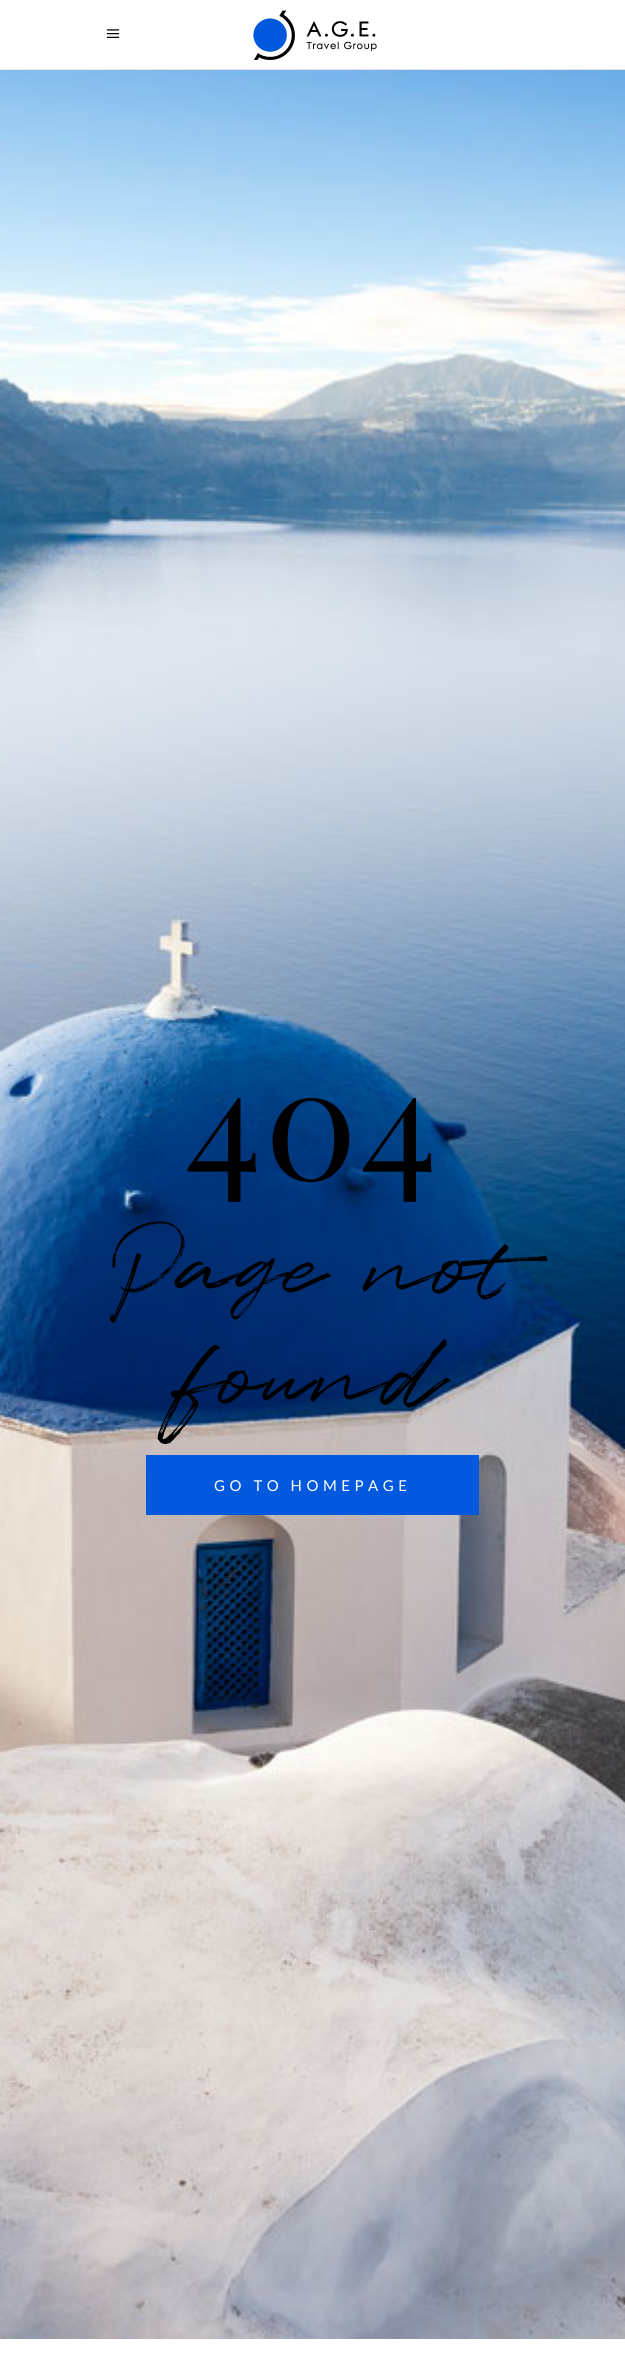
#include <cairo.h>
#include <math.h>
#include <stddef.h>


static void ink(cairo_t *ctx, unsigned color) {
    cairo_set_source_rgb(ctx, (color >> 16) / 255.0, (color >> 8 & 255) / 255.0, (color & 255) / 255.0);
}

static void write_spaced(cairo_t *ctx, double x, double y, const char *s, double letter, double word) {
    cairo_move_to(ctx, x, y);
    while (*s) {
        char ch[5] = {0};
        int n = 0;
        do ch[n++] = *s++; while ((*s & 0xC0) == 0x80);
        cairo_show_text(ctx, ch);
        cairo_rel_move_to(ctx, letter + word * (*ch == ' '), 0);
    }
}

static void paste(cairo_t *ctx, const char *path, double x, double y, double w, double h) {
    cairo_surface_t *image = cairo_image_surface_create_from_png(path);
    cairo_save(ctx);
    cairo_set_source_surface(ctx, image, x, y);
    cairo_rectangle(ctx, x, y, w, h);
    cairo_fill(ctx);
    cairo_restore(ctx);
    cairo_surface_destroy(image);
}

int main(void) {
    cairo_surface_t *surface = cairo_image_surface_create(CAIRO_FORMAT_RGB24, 625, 2359);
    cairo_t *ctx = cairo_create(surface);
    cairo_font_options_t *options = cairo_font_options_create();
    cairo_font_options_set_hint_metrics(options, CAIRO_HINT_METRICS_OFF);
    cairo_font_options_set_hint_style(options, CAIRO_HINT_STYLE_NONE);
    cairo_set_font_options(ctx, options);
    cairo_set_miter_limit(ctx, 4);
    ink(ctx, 0xFFFFFF);
    cairo_paint(ctx);
    ink(ctx, 0xE6E6E6);
    cairo_rectangle(ctx, 0, 69, 625, 1);
    cairo_fill(ctx);
    paste(ctx, "media/1.png", 106, 29, 14, 9);
    paste(ctx, "media/2.png", 253, 10, 124, 50);
    paste(ctx, "media/3.png", 0, 70, 625, 2269);
    cairo_select_font_face(ctx, "Playfair Display SC", CAIRO_FONT_SLANT_NORMAL, CAIRO_FONT_WEIGHT_NORMAL);
    cairo_set_font_size(ctx, 155);
    ink(ctx, 0x000000);
    write_spaced(ctx, 185, 1180, "404", 3, 0);
    cairo_select_font_face(ctx, "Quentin", CAIRO_FONT_SLANT_NORMAL, CAIRO_FONT_WEIGHT_NORMAL);
    cairo_set_font_size(ctx, 100);
    write_spaced(ctx, 109, 1296, "Page not", 2, 0);
    write_spaced(ctx, 180, 1406, "found", 2, 0);
    ink(ctx, 0x0259DE);
    cairo_rectangle(ctx, 146, 1455, 333, 60);
    cairo_fill(ctx);
    cairo_select_font_face(ctx, "Lato", CAIRO_FONT_SLANT_NORMAL, CAIRO_FONT_WEIGHT_NORMAL);
    cairo_set_font_size(ctx, 15);
    ink(ctx, 0xFFFFFF);
    write_spaced(ctx, 214, 1491, "GO TO HOMEPAGE", 4.5, 0);
    cairo_surface_write_to_png(surface, "image.png");
    cairo_font_options_destroy(options);
    cairo_destroy(ctx);
    cairo_surface_destroy(surface);
    return 0;
}
